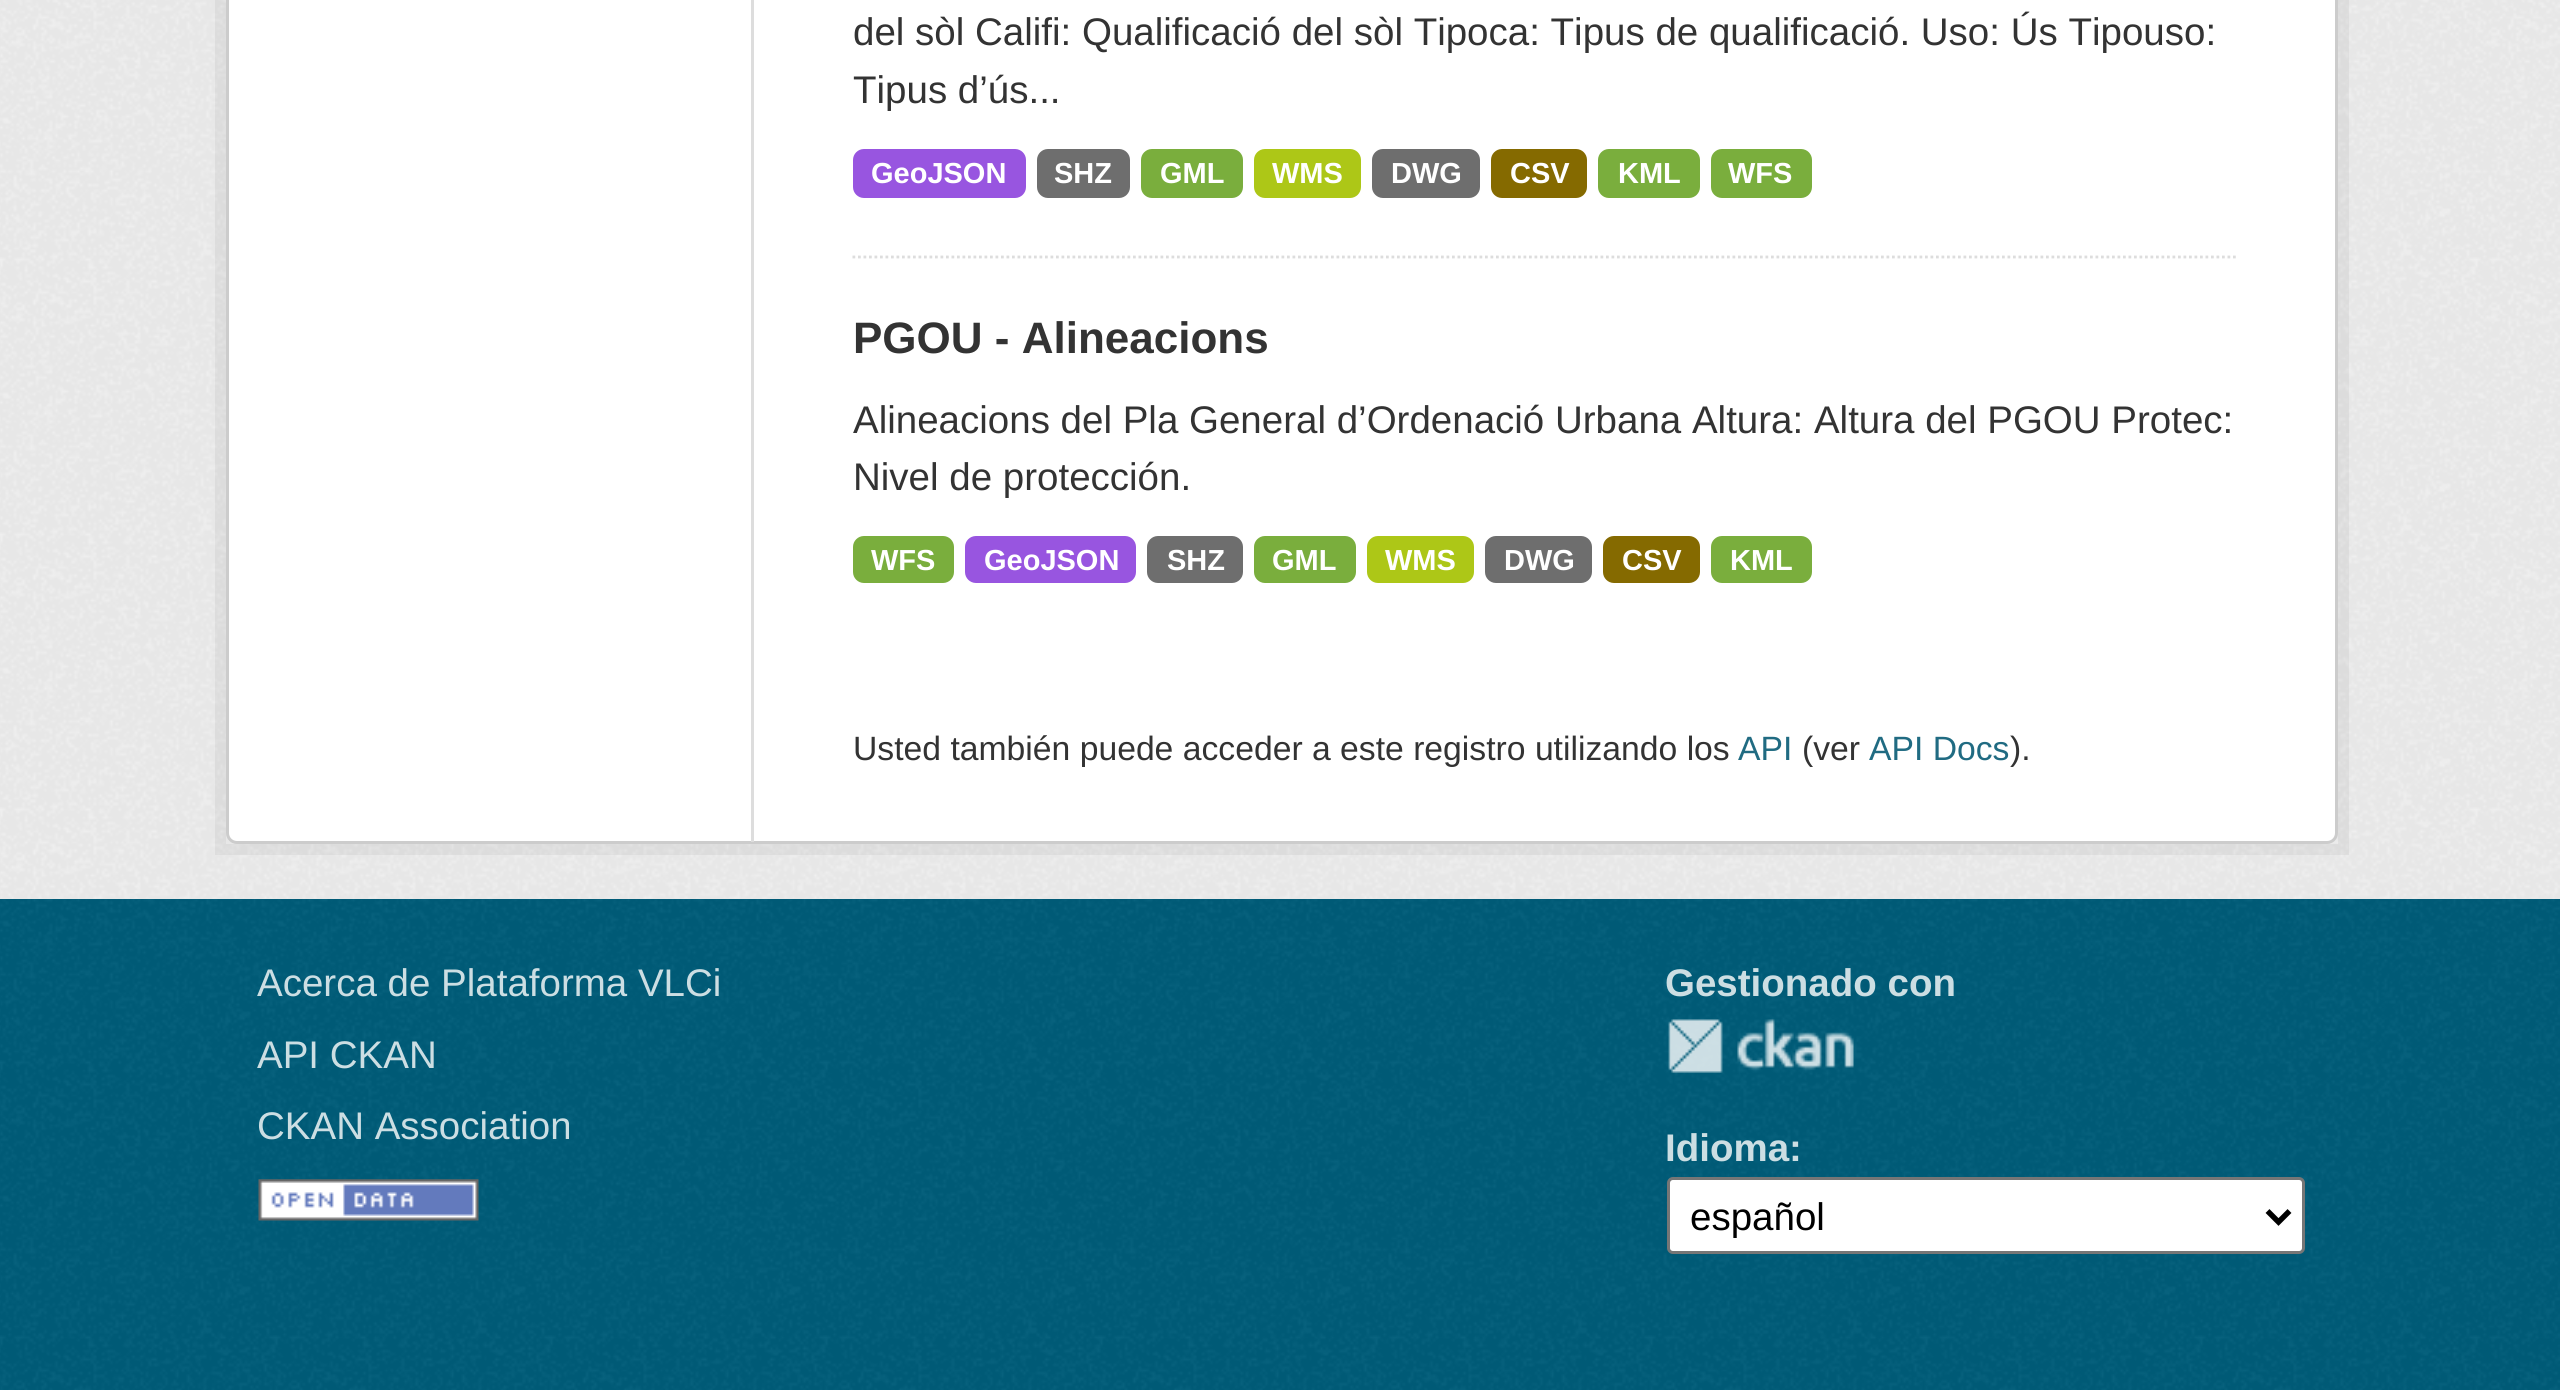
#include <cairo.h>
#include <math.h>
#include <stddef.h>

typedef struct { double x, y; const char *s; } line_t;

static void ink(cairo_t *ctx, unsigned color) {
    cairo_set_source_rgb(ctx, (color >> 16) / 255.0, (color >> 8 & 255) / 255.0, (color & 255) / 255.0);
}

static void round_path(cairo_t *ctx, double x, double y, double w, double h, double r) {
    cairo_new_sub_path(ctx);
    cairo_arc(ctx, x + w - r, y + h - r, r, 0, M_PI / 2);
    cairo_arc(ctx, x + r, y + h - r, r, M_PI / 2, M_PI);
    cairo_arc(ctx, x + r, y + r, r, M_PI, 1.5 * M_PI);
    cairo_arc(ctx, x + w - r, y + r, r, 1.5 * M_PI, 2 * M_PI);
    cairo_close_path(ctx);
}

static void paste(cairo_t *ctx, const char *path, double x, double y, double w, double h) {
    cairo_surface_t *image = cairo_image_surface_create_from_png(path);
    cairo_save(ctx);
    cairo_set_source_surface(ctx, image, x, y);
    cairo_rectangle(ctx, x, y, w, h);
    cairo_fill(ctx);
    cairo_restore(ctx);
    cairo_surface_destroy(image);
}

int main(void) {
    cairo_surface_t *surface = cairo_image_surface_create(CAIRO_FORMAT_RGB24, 2560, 1390);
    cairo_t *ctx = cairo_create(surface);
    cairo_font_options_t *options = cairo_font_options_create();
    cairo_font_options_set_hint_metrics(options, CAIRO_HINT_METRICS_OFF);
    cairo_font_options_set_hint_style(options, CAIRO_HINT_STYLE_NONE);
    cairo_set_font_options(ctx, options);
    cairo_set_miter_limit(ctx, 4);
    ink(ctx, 0x005D7A);
    cairo_paint(ctx);
    ink(ctx, 0xEEEEEE);
    cairo_rectangle(ctx, 0, 0, 2560, 899);
    cairo_fill(ctx);
    paste(ctx, "media/1.png", 0, 0, 2560, 899);
    cairo_rectangle(ctx, 220.5, -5.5, 2123, 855);
    cairo_set_source_rgba(ctx, 0, 0, 0, 0.05);
    cairo_set_line_width(ctx, 11);
    cairo_stroke(ctx);
    ink(ctx, 0xFFFFFF);
    round_path(ctx, 227.5, -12.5, 2109, 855, 9.5);
    cairo_fill_preserve(ctx);
    ink(ctx, 0xCCCCCC);
    cairo_set_line_width(ctx, 3);
    cairo_stroke(ctx);
    ink(ctx, 0xDDDDDD);
    cairo_rectangle(ctx, 751, 0, 3, 842);
    cairo_fill(ctx);
    cairo_new_path(ctx);
    cairo_move_to(ctx, 852.5, 257);
    cairo_line_to(ctx, 2236, 257);
    cairo_set_line_width(ctx, 2.8);
    cairo_set_dash(ctx, (double[]){2.75, 2.75}, 2, 0);
    cairo_stroke(ctx);
    cairo_select_font_face(ctx, "Liberation Sans", CAIRO_FONT_SLANT_NORMAL, CAIRO_FONT_WEIGHT_NORMAL);
    cairo_set_font_size(ctx, 38.5);
    ink(ctx, 0x333333);
    cairo_move_to(ctx, 853, 45);
    cairo_show_text(ctx, "del sòl Califi: Qualificació del sòl Tipoca: Tipus de qualificació. Uso: Ús Tipouso:");
    cairo_move_to(ctx, 853, 103);
    cairo_show_text(ctx, "Tipus d’ús...");
    ink(ctx, 0x9855E0);
    round_path(ctx, 853, 149, 173, 49, 11);
    cairo_fill(ctx);
    cairo_select_font_face(ctx, "Liberation Sans", CAIRO_FONT_SLANT_NORMAL, CAIRO_FONT_WEIGHT_BOLD);
    cairo_set_font_size(ctx, 29);
    ink(ctx, 0xFFFFFF);
    cairo_move_to(ctx, 871, 183);
    cairo_show_text(ctx, "GeoJSON");
    ink(ctx, 0x6E6E6E);
    round_path(ctx, 1037, 149, 93, 49, 11);
    cairo_fill(ctx);
    ink(ctx, 0xFFFFFF);
    cairo_move_to(ctx, 1054, 183);
    cairo_show_text(ctx, "SHZ");
    ink(ctx, 0x7AAE3D);
    round_path(ctx, 1141, 149, 102, 49, 11);
    cairo_fill(ctx);
    ink(ctx, 0xFFFFFF);
    cairo_move_to(ctx, 1160, 183);
    cairo_show_text(ctx, "GML");
    ink(ctx, 0xADC717);
    round_path(ctx, 1254, 149, 107, 49, 11);
    cairo_fill(ctx);
    ink(ctx, 0xFFFFFF);
    cairo_move_to(ctx, 1272, 183);
    cairo_show_text(ctx, "WMS");
    ink(ctx, 0x6E6E6E);
    round_path(ctx, 1372, 149, 108, 49, 11);
    cairo_fill(ctx);
    ink(ctx, 0xFFFFFF);
    cairo_move_to(ctx, 1391, 183);
    cairo_show_text(ctx, "DWG");
    ink(ctx, 0x856A00);
    round_path(ctx, 1491, 149, 96, 49, 11);
    cairo_fill(ctx);
    ink(ctx, 0xFFFFFF);
    cairo_move_to(ctx, 1510, 183);
    cairo_show_text(ctx, "CSV");
    ink(ctx, 0x7AAE3D);
    round_path(ctx, 1598, 149, 102, 49, 11);
    cairo_fill(ctx);
    ink(ctx, 0xFFFFFF);
    cairo_move_to(ctx, 1618, 183);
    cairo_show_text(ctx, "KML");
    ink(ctx, 0x7AAE3D);
    round_path(ctx, 1711, 149, 101, 49, 11);
    cairo_fill(ctx);
    ink(ctx, 0xFFFFFF);
    cairo_move_to(ctx, 1728, 183);
    cairo_show_text(ctx, "WFS");
    cairo_set_font_size(ctx, 44);
    ink(ctx, 0x333333);
    cairo_move_to(ctx, 853, 353);
    cairo_show_text(ctx, "PGOU - Alineacions");
    cairo_select_font_face(ctx, "Liberation Sans", CAIRO_FONT_SLANT_NORMAL, CAIRO_FONT_WEIGHT_NORMAL);
    cairo_set_font_size(ctx, 38.5);
    cairo_move_to(ctx, 853, 433);
    cairo_show_text(ctx, "Alineacions del Pla General d’Ordenació Urbana Altura: Altura del PGOU Protec:");
    cairo_move_to(ctx, 853, 490);
    cairo_show_text(ctx, "Nivel de protección.");
    ink(ctx, 0x7AAE3D);
    round_path(ctx, 853, 536, 101, 47, 11);
    cairo_fill(ctx);
    cairo_select_font_face(ctx, "Liberation Sans", CAIRO_FONT_SLANT_NORMAL, CAIRO_FONT_WEIGHT_BOLD);
    cairo_set_font_size(ctx, 29);
    ink(ctx, 0xFFFFFF);
    cairo_move_to(ctx, 871, 570);
    cairo_show_text(ctx, "WFS");
    ink(ctx, 0x9855E0);
    round_path(ctx, 965, 536, 171, 47, 11);
    cairo_fill(ctx);
    ink(ctx, 0xFFFFFF);
    cairo_move_to(ctx, 984, 570);
    cairo_show_text(ctx, "GeoJSON");
    ink(ctx, 0x6E6E6E);
    round_path(ctx, 1147, 536, 96, 47, 11);
    cairo_fill(ctx);
    ink(ctx, 0xFFFFFF);
    cairo_move_to(ctx, 1167, 570);
    cairo_show_text(ctx, "SHZ");
    ink(ctx, 0x7AAE3D);
    round_path(ctx, 1254, 536, 102, 47, 11);
    cairo_fill(ctx);
    ink(ctx, 0xFFFFFF);
    cairo_move_to(ctx, 1272, 570);
    cairo_show_text(ctx, "GML");
    ink(ctx, 0xADC717);
    round_path(ctx, 1367, 536, 107, 47, 11);
    cairo_fill(ctx);
    ink(ctx, 0xFFFFFF);
    cairo_move_to(ctx, 1385, 570);
    cairo_show_text(ctx, "WMS");
    ink(ctx, 0x6E6E6E);
    round_path(ctx, 1485, 536, 107, 47, 11);
    cairo_fill(ctx);
    ink(ctx, 0xFFFFFF);
    cairo_move_to(ctx, 1504, 570);
    cairo_show_text(ctx, "DWG");
    ink(ctx, 0x856A00);
    round_path(ctx, 1603, 536, 97, 47, 11);
    cairo_fill(ctx);
    ink(ctx, 0xFFFFFF);
    cairo_move_to(ctx, 1622, 570);
    cairo_show_text(ctx, "CSV");
    ink(ctx, 0x7AAE3D);
    round_path(ctx, 1711, 536, 101, 47, 11);
    cairo_fill(ctx);
    ink(ctx, 0xFFFFFF);
    cairo_move_to(ctx, 1730, 570);
    cairo_show_text(ctx, "KML");
    cairo_select_font_face(ctx, "Liberation Sans", CAIRO_FONT_SLANT_NORMAL, CAIRO_FONT_WEIGHT_NORMAL);
    cairo_set_font_size(ctx, 33.7);
    ink(ctx, 0x333333);
    cairo_move_to(ctx, 853, 760);
    cairo_show_text(ctx, "Usted también puede acceder a este registro utilizando los");
    ink(ctx, 0x206B82);
    cairo_move_to(ctx, 1738, 760);
    cairo_show_text(ctx, "API");
    ink(ctx, 0x333333);
    cairo_move_to(ctx, 1802, 760);
    cairo_show_text(ctx, "(ver");
    ink(ctx, 0x206B82);
    cairo_move_to(ctx, 1869, 760);
    cairo_show_text(ctx, "API Docs");
    ink(ctx, 0x333333);
    cairo_move_to(ctx, 2010, 760);
    cairo_show_text(ctx, ").");
    paste(ctx, "media/2.png", 0, 899, 2560, 491);
    cairo_set_font_size(ctx, 38.5);
    ink(ctx, 0xCCDEE3);
    {
        static const line_t items[] = {
            {257, 996, "Acerca de Plataforma VLCi"},
            {257, 1068, "API CKAN"},
            {257, 1139, "CKAN Association"},
        };
        for (size_t i = 0; i < sizeof items / sizeof *items; i++) {
            cairo_move_to(ctx, items[i].x, items[i].y);
            cairo_show_text(ctx, items[i].s);
        }
    }
    paste(ctx, "media/3.png", 258, 1179, 221, 42);
    cairo_select_font_face(ctx, "Liberation Sans", CAIRO_FONT_SLANT_NORMAL, CAIRO_FONT_WEIGHT_BOLD);
    cairo_move_to(ctx, 1665, 996);
    cairo_show_text(ctx, "Gestionado con");
    paste(ctx, "media/4.png", 1668, 1019, 186, 54);
    cairo_move_to(ctx, 1665, 1161);
    cairo_show_text(ctx, "Idioma:");
    ink(ctx, 0xFFFFFF);
    round_path(ctx, 1668.5, 1178.5, 635, 74, 4.5);
    cairo_fill_preserve(ctx);
    ink(ctx, 0x767676);
    cairo_set_line_width(ctx, 3);
    cairo_set_dash(ctx, NULL, 0, 0);
    cairo_stroke(ctx);
    cairo_new_path(ctx);
    cairo_move_to(ctx, 2267.5, 1211);
    cairo_line_to(ctx, 2278.5, 1222);
    cairo_line_to(ctx, 2289.5, 1211);
    ink(ctx, 0x000000);
    cairo_set_line_width(ctx, 5.5);
    cairo_stroke(ctx);
    cairo_select_font_face(ctx, "Liberation Sans", CAIRO_FONT_SLANT_NORMAL, CAIRO_FONT_WEIGHT_NORMAL);
    cairo_move_to(ctx, 1690, 1230);
    cairo_show_text(ctx, "español");
    cairo_surface_write_to_png(surface, "image.png");
    cairo_font_options_destroy(options);
    cairo_destroy(ctx);
    cairo_surface_destroy(surface);
    return 0;
}
